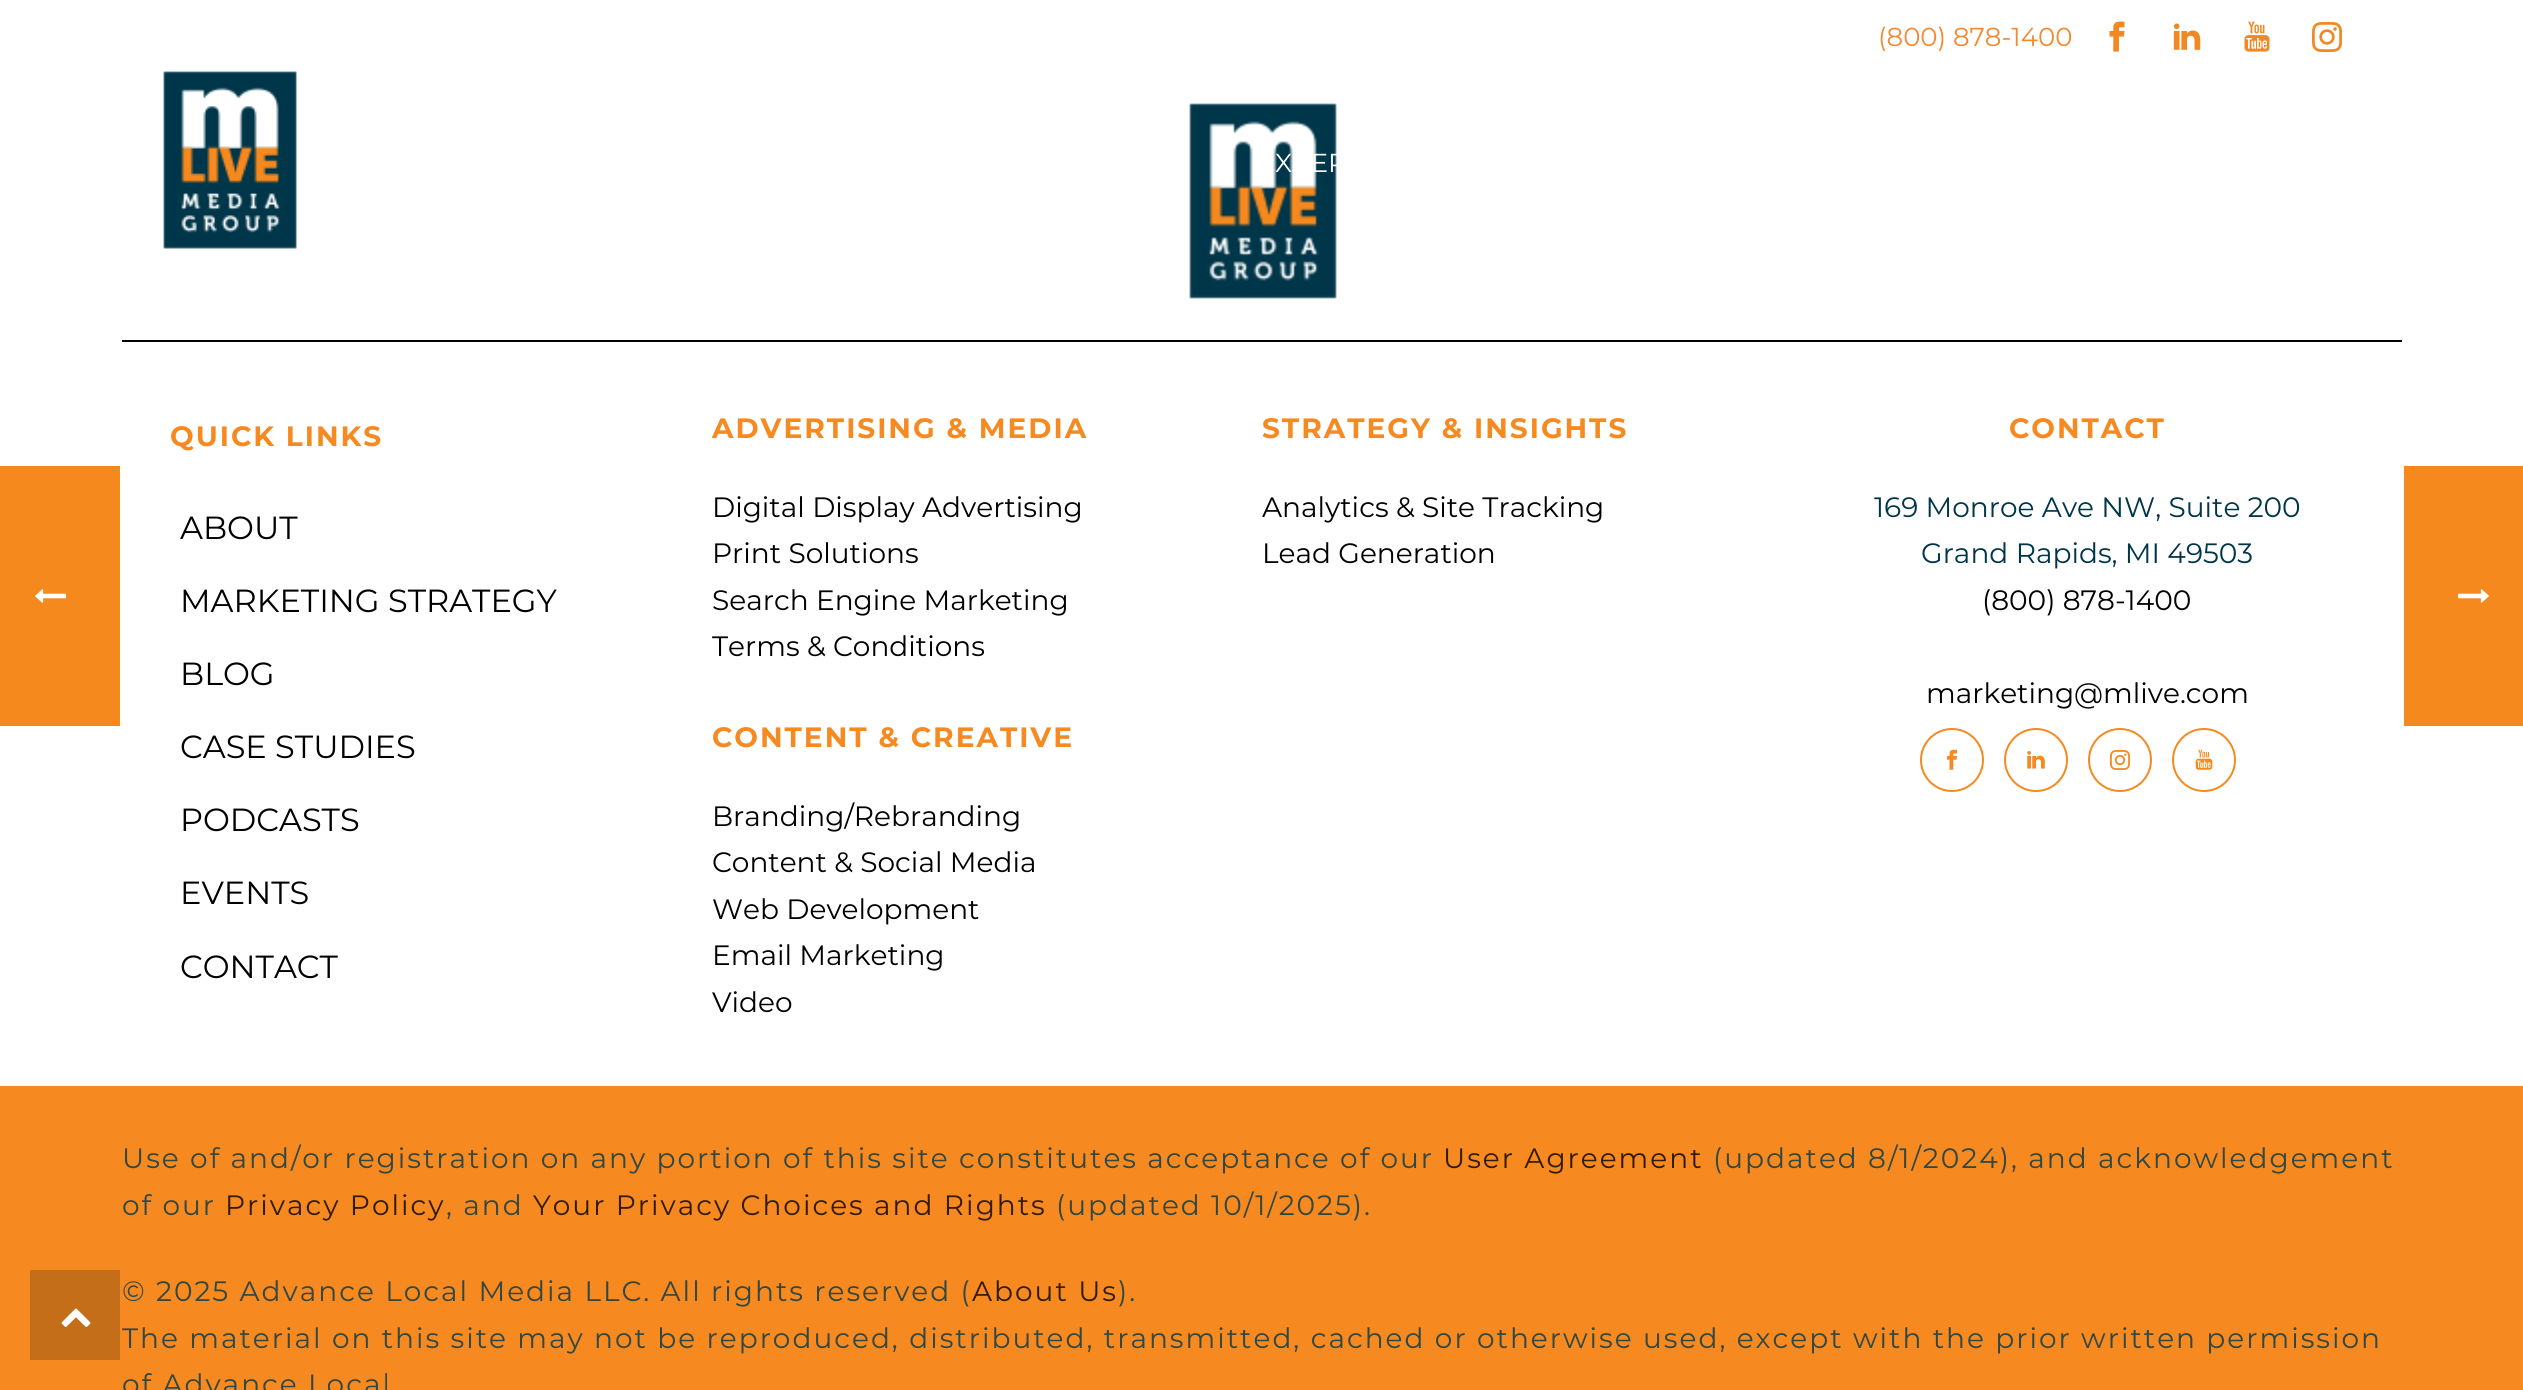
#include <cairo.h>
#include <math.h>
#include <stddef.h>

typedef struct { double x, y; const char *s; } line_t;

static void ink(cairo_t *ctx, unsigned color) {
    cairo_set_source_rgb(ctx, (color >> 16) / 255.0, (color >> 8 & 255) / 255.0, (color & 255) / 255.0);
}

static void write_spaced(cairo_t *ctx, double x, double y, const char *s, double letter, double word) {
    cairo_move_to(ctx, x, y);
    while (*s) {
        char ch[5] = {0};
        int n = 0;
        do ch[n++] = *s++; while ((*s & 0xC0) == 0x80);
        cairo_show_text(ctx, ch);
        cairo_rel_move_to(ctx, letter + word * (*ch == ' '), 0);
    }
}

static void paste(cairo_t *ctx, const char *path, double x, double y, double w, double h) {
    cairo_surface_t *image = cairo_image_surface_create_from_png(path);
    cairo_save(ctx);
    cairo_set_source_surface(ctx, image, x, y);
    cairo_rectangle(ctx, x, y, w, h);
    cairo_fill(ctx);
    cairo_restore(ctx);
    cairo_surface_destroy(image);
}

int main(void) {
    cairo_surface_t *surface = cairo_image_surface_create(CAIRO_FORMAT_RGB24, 2523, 1390);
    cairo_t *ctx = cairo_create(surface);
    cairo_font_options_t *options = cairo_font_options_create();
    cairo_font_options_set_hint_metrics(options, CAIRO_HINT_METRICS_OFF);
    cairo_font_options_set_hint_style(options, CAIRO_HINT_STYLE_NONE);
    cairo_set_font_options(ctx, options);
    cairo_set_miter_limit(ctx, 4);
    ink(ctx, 0xFFFFFF);
    cairo_paint(ctx);
    ink(ctx, 0xF6891E);
    cairo_rectangle(ctx, 0, 466, 120, 260);
    cairo_fill(ctx);
    paste(ctx, "media/1.png", 35, 589, 31, 14);
    cairo_select_font_face(ctx, "Montserrat", CAIRO_FONT_SLANT_NORMAL, CAIRO_FONT_WEIGHT_NORMAL);
    cairo_set_font_size(ctx, 26);
    ink(ctx, 0xF48930);
    cairo_move_to(ctx, 1878, 46);
    cairo_show_text(ctx, "(800) 878-1400");
    paste(ctx, "media/2.png", 2109, 21, 16, 31);
    paste(ctx, "media/3.png", 2173, 23, 28, 27);
    paste(ctx, "media/4.png", 2244, 21, 26, 31);
    paste(ctx, "media/5.png", 2312, 22, 30, 30);
    paste(ctx, "media/6.png", 163, 71, 134, 178);
    paste(ctx, "media/7.png", 1189, 103, 148, 196);
    ink(ctx, 0xFFFFFF);
    cairo_move_to(ctx, 1275, 172);
    cairo_show_text(ctx, "XPER");
    ink(ctx, 0x000000);
    cairo_rectangle(ctx, 122, 340, 2280, 2);
    cairo_fill(ctx);
    cairo_select_font_face(ctx, "Montserrat", CAIRO_FONT_SLANT_NORMAL, CAIRO_FONT_WEIGHT_BOLD);
    cairo_set_font_size(ctx, 28);
    ink(ctx, 0xF6891F);
    write_spaced(ctx, 170, 446, "QUICK LINKS", 2, 0);
    cairo_select_font_face(ctx, "Montserrat", CAIRO_FONT_SLANT_NORMAL, CAIRO_FONT_WEIGHT_NORMAL);
    cairo_set_font_size(ctx, 32);
    ink(ctx, 0x000000);
    {
        static const line_t items[] = {
            {180, 539, "ABOUT"},
            {180, 612, "MARKETING STRATEGY"},
            {180, 685, "BLOG"},
            {180, 758, "CASE STUDIES"},
            {180, 831, "PODCASTS"},
            {180, 904, "EVENTS"},
            {180, 978, "CONTACT"},
        };
        for (size_t i = 0; i < sizeof items / sizeof *items; i++) {
            cairo_move_to(ctx, items[i].x, items[i].y);
            cairo_show_text(ctx, items[i].s);
        }
    }
    cairo_select_font_face(ctx, "Montserrat", CAIRO_FONT_SLANT_NORMAL, CAIRO_FONT_WEIGHT_BOLD);
    cairo_set_font_size(ctx, 28);
    ink(ctx, 0xF6891F);
    write_spaced(ctx, 712, 438, "ADVERTISING & MEDIA", 2, 0);
    cairo_select_font_face(ctx, "Montserrat", CAIRO_FONT_SLANT_NORMAL, CAIRO_FONT_WEIGHT_NORMAL);
    ink(ctx, 0x000000);
    {
        static const line_t items[] = {
            {712, 517, "Digital Display Advertising"},
            {712, 563, "Print Solutions"},
            {712, 610, "Search Engine Marketing"},
            {712, 656, "Terms & Conditions"},
        };
        for (size_t i = 0; i < sizeof items / sizeof *items; i++) {
            cairo_move_to(ctx, items[i].x, items[i].y);
            cairo_show_text(ctx, items[i].s);
        }
    }
    cairo_select_font_face(ctx, "Montserrat", CAIRO_FONT_SLANT_NORMAL, CAIRO_FONT_WEIGHT_BOLD);
    ink(ctx, 0xF6891F);
    write_spaced(ctx, 712, 747, "CONTENT & CREATIVE", 2, 0);
    cairo_select_font_face(ctx, "Montserrat", CAIRO_FONT_SLANT_NORMAL, CAIRO_FONT_WEIGHT_NORMAL);
    ink(ctx, 0x000000);
    {
        static const line_t items[] = {
            {712, 826, "Branding/Rebranding"},
            {712, 872, "Content & Social Media"},
            {712, 919, "Web Development"},
            {712, 965, "Email Marketing"},
            {712, 1012, "Video"},
        };
        for (size_t i = 0; i < sizeof items / sizeof *items; i++) {
            cairo_move_to(ctx, items[i].x, items[i].y);
            cairo_show_text(ctx, items[i].s);
        }
    }
    cairo_select_font_face(ctx, "Montserrat", CAIRO_FONT_SLANT_NORMAL, CAIRO_FONT_WEIGHT_BOLD);
    ink(ctx, 0xF6891F);
    write_spaced(ctx, 1262, 438, "STRATEGY & INSIGHTS", 2, 0);
    cairo_select_font_face(ctx, "Montserrat", CAIRO_FONT_SLANT_NORMAL, CAIRO_FONT_WEIGHT_NORMAL);
    ink(ctx, 0x000000);
    cairo_move_to(ctx, 1262, 517);
    cairo_show_text(ctx, "Analytics & Site Tracking");
    cairo_move_to(ctx, 1262, 563);
    cairo_show_text(ctx, "Lead Generation");
    cairo_select_font_face(ctx, "Montserrat", CAIRO_FONT_SLANT_NORMAL, CAIRO_FONT_WEIGHT_BOLD);
    ink(ctx, 0xF6891F);
    write_spaced(ctx, 2009, 438, "CONTACT", 2, 0);
    cairo_select_font_face(ctx, "Montserrat", CAIRO_FONT_SLANT_NORMAL, CAIRO_FONT_WEIGHT_NORMAL);
    ink(ctx, 0x003649);
    cairo_move_to(ctx, 1874, 517);
    cairo_show_text(ctx, "169 Monroe Ave NW, Suite 200");
    cairo_move_to(ctx, 1921, 563);
    cairo_show_text(ctx, "Grand Rapids, MI 49503");
    ink(ctx, 0x000000);
    cairo_move_to(ctx, 1982, 610);
    cairo_show_text(ctx, "(800) 878-1400");
    cairo_move_to(ctx, 1926, 703);
    cairo_show_text(ctx, "marketing@mlive.com");
    cairo_new_path(ctx);
    cairo_arc(ctx, 1952, 760, 31, 0, 2 * M_PI);
    ink(ctx, 0xF6891F);
    cairo_stroke(ctx);
    paste(ctx, "media/8.png", 1947, 749, 10, 21);
    cairo_arc(ctx, 2036, 760, 31, 0, 2 * M_PI);
    cairo_stroke(ctx);
    paste(ctx, "media/9.png", 2027, 751, 18, 18);
    cairo_arc(ctx, 2120, 760, 31, 0, 2 * M_PI);
    cairo_stroke(ctx);
    paste(ctx, "media/10.png", 2110, 750, 20, 20);
    cairo_arc(ctx, 2204, 760, 31, 0, 2 * M_PI);
    cairo_stroke(ctx);
    paste(ctx, "media/11.png", 2195, 749, 18, 21);
    cairo_rectangle(ctx, 0, 1086, 2523, 304);
    cairo_fill(ctx);
    ink(ctx, 0x314741);
    write_spaced(ctx, 122, 1168, "Use of and/or registration on any portion of this site constitutes acceptance of our", 2, 0);
    ink(ctx, 0x311B06);
    write_spaced(ctx, 1443, 1168, "User Agreement", 2, 0);
    ink(ctx, 0x314741);
    write_spaced(ctx, 1713, 1168, "(updated 8/1/2024), and acknowledgement", 2, 0);
    write_spaced(ctx, 122, 1215, "of our", 2, 0);
    ink(ctx, 0x311B06);
    write_spaced(ctx, 225, 1215, "Privacy Policy", 2, 0);
    ink(ctx, 0x314741);
    write_spaced(ctx, 446, 1215, ", and", 2, 0);
    ink(ctx, 0x311B06);
    write_spaced(ctx, 533, 1215, "Your Privacy Choices and Rights", 2, 0);
    ink(ctx, 0x314741);
    write_spaced(ctx, 1056, 1215, "(updated 10/1/2025).", 2, 0);
    write_spaced(ctx, 122, 1301, "© 2025 Advance Local Media LLC. All rights reserved (", 2, 0);
    ink(ctx, 0x311B06);
    write_spaced(ctx, 972, 1301, "About Us", 2, 0);
    ink(ctx, 0x314741);
    {
        static const line_t items[] = {
            {1118, 1301, ")."},
            {122, 1348, "The material on this site may not be reproduced, distributed, transmitted, cached or otherwise used, except with the prior written permission"},
            {122, 1394, "of Advance Local"},
        };
        for (size_t i = 0; i < sizeof items / sizeof *items; i++) {
            write_spaced(ctx, items[i].x, items[i].y, items[i].s, 2, 0);
        }
    }
    ink(ctx, 0xF6891E);
    cairo_rectangle(ctx, 2404, 466, 119, 260);
    cairo_fill(ctx);
    paste(ctx, "media/12.png", 2458, 589, 31, 14);
    ink(ctx, 0xC56E19);
    cairo_rectangle(ctx, 30, 1270, 90, 90);
    cairo_fill(ctx);
    paste(ctx, "media/13.png", 61, 1308, 30, 19);
    cairo_surface_write_to_png(surface, "image.png");
    cairo_font_options_destroy(options);
    cairo_destroy(ctx);
    cairo_surface_destroy(surface);
    return 0;
}
